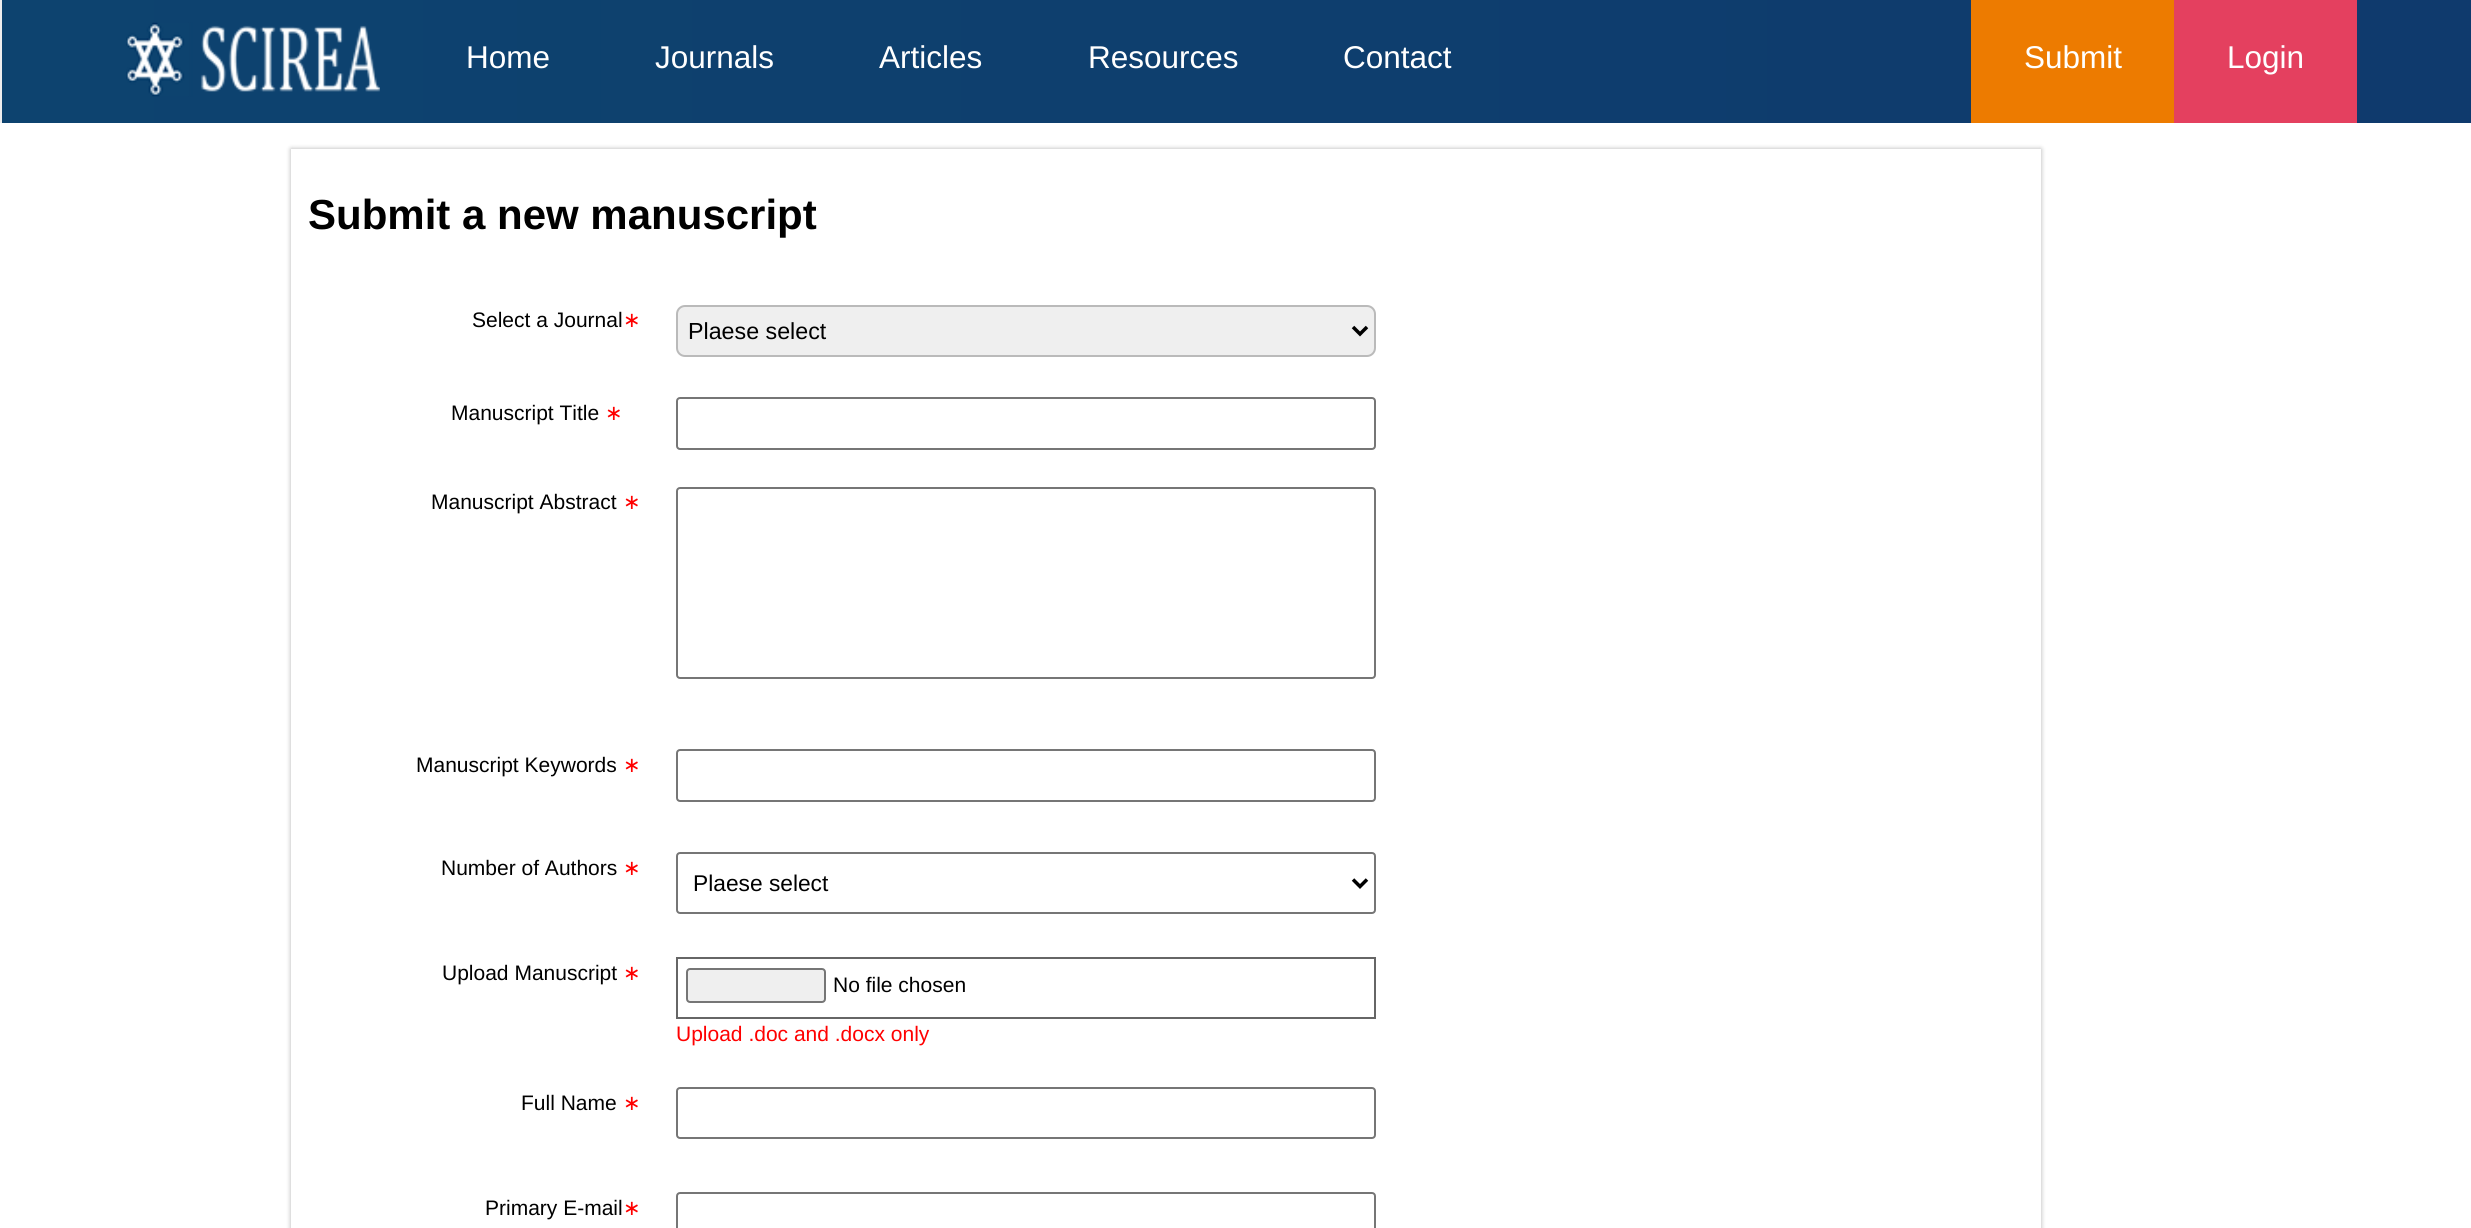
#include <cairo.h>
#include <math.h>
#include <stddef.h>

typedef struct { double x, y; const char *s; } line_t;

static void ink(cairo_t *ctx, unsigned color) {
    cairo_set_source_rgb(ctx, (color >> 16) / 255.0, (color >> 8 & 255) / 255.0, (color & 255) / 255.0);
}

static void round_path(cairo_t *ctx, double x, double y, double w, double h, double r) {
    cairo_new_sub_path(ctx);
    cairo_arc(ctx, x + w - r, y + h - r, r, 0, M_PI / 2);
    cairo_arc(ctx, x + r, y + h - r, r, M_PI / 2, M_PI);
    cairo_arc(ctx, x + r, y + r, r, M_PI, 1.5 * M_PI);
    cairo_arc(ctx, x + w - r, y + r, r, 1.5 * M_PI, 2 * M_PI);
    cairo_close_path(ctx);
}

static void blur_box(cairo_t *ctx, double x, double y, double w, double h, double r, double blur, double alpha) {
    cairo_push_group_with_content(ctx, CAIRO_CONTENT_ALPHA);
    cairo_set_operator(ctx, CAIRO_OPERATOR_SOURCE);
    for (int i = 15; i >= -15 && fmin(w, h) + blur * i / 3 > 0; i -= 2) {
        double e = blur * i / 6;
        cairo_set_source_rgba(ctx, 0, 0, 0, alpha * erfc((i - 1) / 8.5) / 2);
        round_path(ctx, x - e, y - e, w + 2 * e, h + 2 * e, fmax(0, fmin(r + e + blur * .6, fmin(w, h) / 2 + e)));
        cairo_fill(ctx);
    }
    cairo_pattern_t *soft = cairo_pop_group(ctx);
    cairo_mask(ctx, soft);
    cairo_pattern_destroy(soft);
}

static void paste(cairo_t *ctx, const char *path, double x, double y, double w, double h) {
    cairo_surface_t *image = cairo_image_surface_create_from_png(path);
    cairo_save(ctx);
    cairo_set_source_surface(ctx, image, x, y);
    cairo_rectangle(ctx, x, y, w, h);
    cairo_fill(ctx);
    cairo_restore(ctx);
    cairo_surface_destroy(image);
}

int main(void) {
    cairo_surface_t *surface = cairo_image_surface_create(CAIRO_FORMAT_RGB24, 2471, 1228);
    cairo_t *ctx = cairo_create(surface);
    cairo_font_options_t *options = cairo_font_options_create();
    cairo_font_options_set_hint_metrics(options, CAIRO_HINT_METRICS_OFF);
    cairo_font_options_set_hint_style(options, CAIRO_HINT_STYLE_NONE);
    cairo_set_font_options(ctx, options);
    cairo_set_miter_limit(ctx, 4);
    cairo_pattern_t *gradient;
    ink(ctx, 0xFFFFFF);
    cairo_paint(ctx);
    gradient = cairo_pattern_create_linear(1.8, 61, 2471, 61);
    cairo_pattern_add_color_stop_rgba(gradient, 0, 0.051, 0.263, 0.435, 1);
    cairo_pattern_add_color_stop_rgba(gradient, 1, 0.059, 0.227, 0.427, 1);
    cairo_set_source(ctx, gradient);
    cairo_pattern_destroy(gradient);
    cairo_rectangle(ctx, 2, 0, 2469, 123);
    cairo_fill(ctx);
    ink(ctx, 0xEEEEEE);
    cairo_rectangle(ctx, 0, 0, 2, 123);
    cairo_fill(ctx);
    paste(ctx, "media/1.png", 126, 22, 254, 75);
    cairo_select_font_face(ctx, "Liberation Sans", CAIRO_FONT_SLANT_NORMAL, CAIRO_FONT_WEIGHT_NORMAL);
    cairo_set_font_size(ctx, 31.5);
    ink(ctx, 0xFFFFFF);
    {
        static const line_t items[] = {
            {466, 68, "Home"},
            {655, 68, "Journals"},
            {879, 68, "Articles"},
            {1088, 68, "Resources"},
            {1343, 68, "Contact"},
        };
        for (size_t i = 0; i < sizeof items / sizeof *items; i++) {
            cairo_move_to(ctx, items[i].x, items[i].y);
            cairo_show_text(ctx, items[i].s);
        }
    }
    ink(ctx, 0xED7B00);
    cairo_rectangle(ctx, 1971, 0, 203, 123);
    cairo_fill(ctx);
    ink(ctx, 0xFFFFFF);
    cairo_move_to(ctx, 2024, 68);
    cairo_show_text(ctx, "Submit");
    ink(ctx, 0xE4405F);
    cairo_rectangle(ctx, 2174, 0, 183, 123);
    cairo_fill(ctx);
    ink(ctx, 0xFFFFFF);
    cairo_move_to(ctx, 2227, 68);
    cairo_show_text(ctx, "Login");
    ink(ctx, 0x000000);
    blur_box(ctx, 291, 149, 1750, 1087, 0, 2.5, 0.3);
    ink(ctx, 0xFFFFFF);
    cairo_rectangle(ctx, 291, 149, 1750, 1079);
    cairo_fill(ctx);
    cairo_select_font_face(ctx, "Liberation Sans", CAIRO_FONT_SLANT_NORMAL, CAIRO_FONT_WEIGHT_BOLD);
    cairo_set_font_size(ctx, 42);
    ink(ctx, 0x000000);
    cairo_move_to(ctx, 308, 229);
    cairo_show_text(ctx, "Submit a new manuscript");
    cairo_select_font_face(ctx, "Liberation Sans", CAIRO_FONT_SLANT_NORMAL, CAIRO_FONT_WEIGHT_NORMAL);
    cairo_set_font_size(ctx, 21);
    cairo_move_to(ctx, 472, 327);
    cairo_show_text(ctx, "Select a Journal");
    cairo_select_font_face(ctx, "DejaVu Sans", CAIRO_FONT_SLANT_NORMAL, CAIRO_FONT_WEIGHT_NORMAL);
    ink(ctx, 0xFF0000);
    cairo_move_to(ctx, 623, 327);
    cairo_show_text(ctx, "∗");
    ink(ctx, 0xEFEFEF);
    round_path(ctx, 677, 306, 698, 50, 8);
    cairo_fill_preserve(ctx);
    ink(ctx, 0xBABABA);
    cairo_stroke(ctx);
    cairo_new_path(ctx);
    cairo_move_to(ctx, 1353, 327);
    cairo_line_to(ctx, 1360, 334);
    cairo_line_to(ctx, 1367, 327);
    ink(ctx, 0x000000);
    cairo_set_line_width(ctx, 3.5);
    cairo_stroke(ctx);
    cairo_select_font_face(ctx, "Liberation Sans", CAIRO_FONT_SLANT_NORMAL, CAIRO_FONT_WEIGHT_NORMAL);
    cairo_set_font_size(ctx, 23.25);
    cairo_move_to(ctx, 688, 339);
    cairo_show_text(ctx, "Plaese select");
    cairo_set_font_size(ctx, 21);
    cairo_move_to(ctx, 451, 420);
    cairo_show_text(ctx, "Manuscript Title");
    cairo_select_font_face(ctx, "DejaVu Sans", CAIRO_FONT_SLANT_NORMAL, CAIRO_FONT_WEIGHT_NORMAL);
    ink(ctx, 0xFF0000);
    cairo_move_to(ctx, 605, 420);
    cairo_show_text(ctx, "∗");
    round_path(ctx, 677, 398, 698, 51, 3);
    ink(ctx, 0x767676);
    cairo_set_line_width(ctx, 2);
    cairo_stroke(ctx);
    cairo_select_font_face(ctx, "Liberation Sans", CAIRO_FONT_SLANT_NORMAL, CAIRO_FONT_WEIGHT_NORMAL);
    ink(ctx, 0x000000);
    cairo_move_to(ctx, 431, 509);
    cairo_show_text(ctx, "Manuscript Abstract");
    cairo_select_font_face(ctx, "DejaVu Sans", CAIRO_FONT_SLANT_NORMAL, CAIRO_FONT_WEIGHT_NORMAL);
    ink(ctx, 0xFF0000);
    cairo_move_to(ctx, 623, 509);
    cairo_show_text(ctx, "∗");
    round_path(ctx, 677, 488, 698, 190, 3);
    ink(ctx, 0x767676);
    cairo_stroke(ctx);
    cairo_select_font_face(ctx, "Liberation Sans", CAIRO_FONT_SLANT_NORMAL, CAIRO_FONT_WEIGHT_NORMAL);
    ink(ctx, 0x000000);
    cairo_move_to(ctx, 416, 772);
    cairo_show_text(ctx, "Manuscript Keywords");
    cairo_select_font_face(ctx, "DejaVu Sans", CAIRO_FONT_SLANT_NORMAL, CAIRO_FONT_WEIGHT_NORMAL);
    ink(ctx, 0xFF0000);
    cairo_move_to(ctx, 623, 772);
    cairo_show_text(ctx, "∗");
    round_path(ctx, 677, 750, 698, 51, 3);
    ink(ctx, 0x767676);
    cairo_stroke(ctx);
    cairo_select_font_face(ctx, "Liberation Sans", CAIRO_FONT_SLANT_NORMAL, CAIRO_FONT_WEIGHT_NORMAL);
    ink(ctx, 0x000000);
    cairo_move_to(ctx, 441, 875);
    cairo_show_text(ctx, "Number of Authors");
    cairo_select_font_face(ctx, "DejaVu Sans", CAIRO_FONT_SLANT_NORMAL, CAIRO_FONT_WEIGHT_NORMAL);
    ink(ctx, 0xFF0000);
    cairo_move_to(ctx, 623, 875);
    cairo_show_text(ctx, "∗");
    round_path(ctx, 677, 853, 698, 60, 3);
    ink(ctx, 0x767676);
    cairo_stroke(ctx);
    cairo_new_path(ctx);
    cairo_move_to(ctx, 1353, 879.5);
    cairo_line_to(ctx, 1360, 886.5);
    cairo_line_to(ctx, 1367, 879.5);
    ink(ctx, 0x000000);
    cairo_set_line_width(ctx, 3.5);
    cairo_stroke(ctx);
    cairo_select_font_face(ctx, "Liberation Sans", CAIRO_FONT_SLANT_NORMAL, CAIRO_FONT_WEIGHT_NORMAL);
    cairo_set_font_size(ctx, 22.75);
    cairo_move_to(ctx, 693, 891);
    cairo_show_text(ctx, "Plaese select");
    cairo_set_font_size(ctx, 21);
    cairo_move_to(ctx, 442, 980);
    cairo_show_text(ctx, "Upload Manuscript");
    cairo_select_font_face(ctx, "DejaVu Sans", CAIRO_FONT_SLANT_NORMAL, CAIRO_FONT_WEIGHT_NORMAL);
    ink(ctx, 0xFF0000);
    cairo_move_to(ctx, 623, 980);
    cairo_show_text(ctx, "∗");
    cairo_rectangle(ctx, 677, 958, 698, 60);
    ink(ctx, 0x666666);
    cairo_set_line_width(ctx, 2);
    cairo_stroke(ctx);
    ink(ctx, 0xEFEFEF);
    round_path(ctx, 687, 969, 138, 33, 3);
    cairo_fill_preserve(ctx);
    ink(ctx, 0x767676);
    cairo_stroke(ctx);
    cairo_select_font_face(ctx, "Liberation Sans", CAIRO_FONT_SLANT_NORMAL, CAIRO_FONT_WEIGHT_NORMAL);
    ink(ctx, 0x000000);
    cairo_move_to(ctx, 833, 992);
    cairo_show_text(ctx, "No file chosen");
    ink(ctx, 0xFF0000);
    cairo_move_to(ctx, 676, 1041);
    cairo_show_text(ctx, "Upload .doc and .docx only");
    ink(ctx, 0x000000);
    cairo_move_to(ctx, 521, 1110);
    cairo_show_text(ctx, "Full Name");
    cairo_select_font_face(ctx, "DejaVu Sans", CAIRO_FONT_SLANT_NORMAL, CAIRO_FONT_WEIGHT_NORMAL);
    ink(ctx, 0xFF0000);
    cairo_move_to(ctx, 623, 1110);
    cairo_show_text(ctx, "∗");
    round_path(ctx, 677, 1088, 698, 50, 3);
    ink(ctx, 0x767676);
    cairo_stroke(ctx);
    cairo_select_font_face(ctx, "Liberation Sans", CAIRO_FONT_SLANT_NORMAL, CAIRO_FONT_WEIGHT_NORMAL);
    ink(ctx, 0x000000);
    cairo_move_to(ctx, 485, 1215);
    cairo_show_text(ctx, "Primary E-mail");
    cairo_select_font_face(ctx, "DejaVu Sans", CAIRO_FONT_SLANT_NORMAL, CAIRO_FONT_WEIGHT_NORMAL);
    ink(ctx, 0xFF0000);
    cairo_move_to(ctx, 623, 1215);
    cairo_show_text(ctx, "∗");
    round_path(ctx, 677, 1193, 698, 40, 3);
    ink(ctx, 0x767676);
    cairo_stroke(ctx);
    cairo_surface_write_to_png(surface, "image.png");
    cairo_font_options_destroy(options);
    cairo_destroy(ctx);
    cairo_surface_destroy(surface);
    return 0;
}
